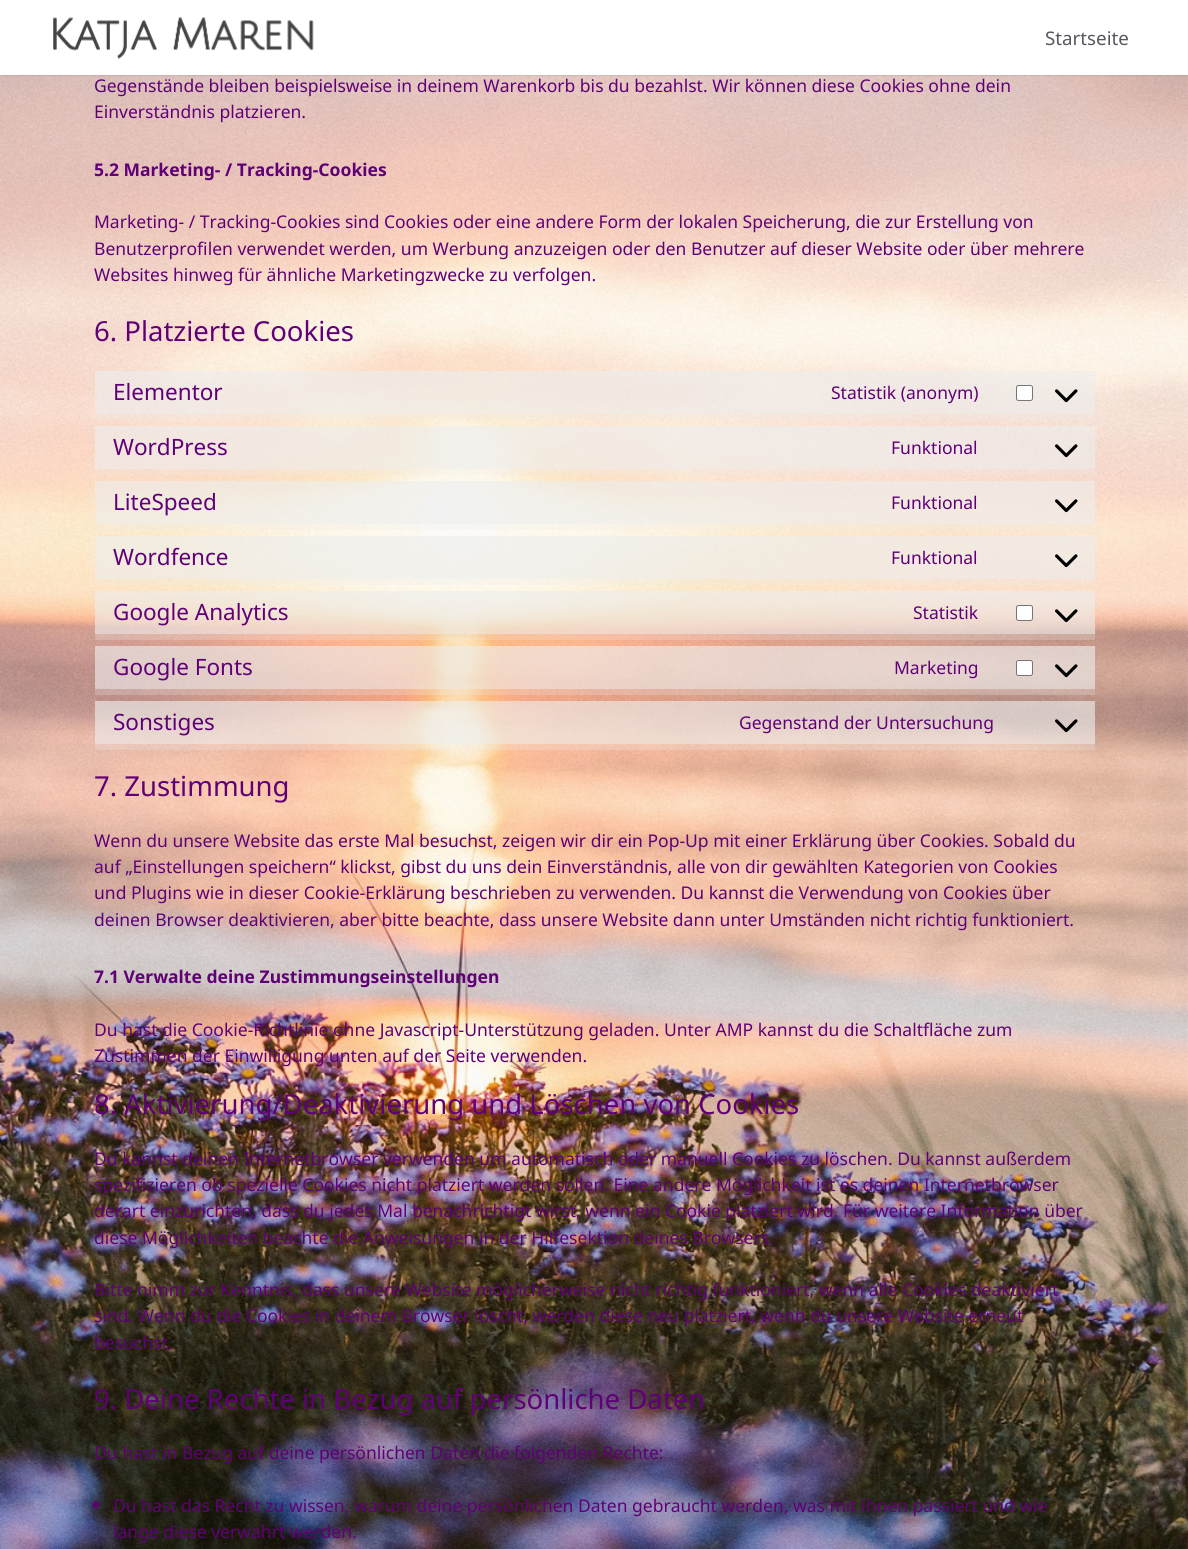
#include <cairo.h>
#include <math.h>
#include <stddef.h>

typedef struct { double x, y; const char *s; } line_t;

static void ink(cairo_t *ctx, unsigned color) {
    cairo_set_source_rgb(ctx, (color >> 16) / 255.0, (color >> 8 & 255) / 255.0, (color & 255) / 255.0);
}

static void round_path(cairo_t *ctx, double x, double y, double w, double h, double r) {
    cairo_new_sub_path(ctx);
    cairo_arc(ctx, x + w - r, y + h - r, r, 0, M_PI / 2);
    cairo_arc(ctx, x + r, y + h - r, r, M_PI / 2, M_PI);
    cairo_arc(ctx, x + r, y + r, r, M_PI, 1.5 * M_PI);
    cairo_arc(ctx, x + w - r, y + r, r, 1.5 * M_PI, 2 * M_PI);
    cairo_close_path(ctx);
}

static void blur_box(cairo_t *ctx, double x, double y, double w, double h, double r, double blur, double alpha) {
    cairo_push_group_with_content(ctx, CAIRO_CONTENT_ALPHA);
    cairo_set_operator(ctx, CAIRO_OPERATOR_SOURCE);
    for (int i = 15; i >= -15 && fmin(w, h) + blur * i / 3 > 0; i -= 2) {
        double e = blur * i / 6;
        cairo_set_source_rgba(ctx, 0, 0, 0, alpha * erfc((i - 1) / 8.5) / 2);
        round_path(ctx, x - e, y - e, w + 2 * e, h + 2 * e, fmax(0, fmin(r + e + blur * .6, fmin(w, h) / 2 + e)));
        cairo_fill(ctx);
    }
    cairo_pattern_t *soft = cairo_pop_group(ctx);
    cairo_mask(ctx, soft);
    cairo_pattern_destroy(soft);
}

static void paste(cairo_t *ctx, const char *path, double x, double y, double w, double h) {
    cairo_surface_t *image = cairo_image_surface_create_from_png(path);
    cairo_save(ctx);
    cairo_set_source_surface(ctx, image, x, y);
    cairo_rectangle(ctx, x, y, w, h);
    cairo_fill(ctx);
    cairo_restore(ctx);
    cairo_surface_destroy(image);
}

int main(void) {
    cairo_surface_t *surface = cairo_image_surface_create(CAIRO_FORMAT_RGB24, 1188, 1549);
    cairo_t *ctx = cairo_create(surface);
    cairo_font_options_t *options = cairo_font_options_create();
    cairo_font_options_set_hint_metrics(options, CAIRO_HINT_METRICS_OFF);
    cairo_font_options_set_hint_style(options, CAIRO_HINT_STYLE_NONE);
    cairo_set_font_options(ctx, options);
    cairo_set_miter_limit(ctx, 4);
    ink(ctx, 0xFFFFFF);
    cairo_paint(ctx);
    paste(ctx, "media/1.png", 0, 75, 1188, 1474);
    ink(ctx, 0x000000);
    blur_box(ctx, 3, 5, 1183, 70, 0, 1, 0.2);
    ink(ctx, 0xFFFFFF);
    cairo_rectangle(ctx, 1, 3, 1187, 72);
    cairo_fill(ctx);
    paste(ctx, "media/2.png", 53, 17, 261, 42);
    cairo_select_font_face(ctx, "Noto Sans", CAIRO_FONT_SLANT_NORMAL, CAIRO_FONT_WEIGHT_NORMAL);
    cairo_set_font_size(ctx, 18.75);
    ink(ctx, 0x575760);
    cairo_move_to(ctx, 1045, 45);
    cairo_show_text(ctx, "Startseite");
    cairo_set_font_size(ctx, 17.5);
    ink(ctx, 0x600077);
    cairo_move_to(ctx, 94, 92);
    cairo_show_text(ctx, "Gegenstände bleiben beispielsweise in deinem Warenkorb bis du bezahlst. Wir können diese Cookies ohne dein");
    cairo_move_to(ctx, 94, 118);
    cairo_show_text(ctx, "Einverständnis platzieren.");
    cairo_select_font_face(ctx, "Noto Sans", CAIRO_FONT_SLANT_NORMAL, CAIRO_FONT_WEIGHT_BOLD);
    cairo_move_to(ctx, 94, 176);
    cairo_show_text(ctx, "5.2 Marketing- / Tracking-Cookies");
    cairo_select_font_face(ctx, "Noto Sans", CAIRO_FONT_SLANT_NORMAL, CAIRO_FONT_WEIGHT_NORMAL);
    {
        static const line_t items[] = {
            {94, 228, "Marketing- / Tracking-Cookies sind Cookies oder eine andere Form der lokalen Speicherung, die zur Erstellung von"},
            {94, 255, "Benutzerprofilen verwendet werden, um Werbung anzuzeigen oder den Benutzer auf dieser Website oder über mehrere"},
            {94, 281, "Websites hinweg für ähnliche Marketingzwecke zu verfolgen."},
        };
        for (size_t i = 0; i < sizeof items / sizeof *items; i++) {
            cairo_move_to(ctx, items[i].x, items[i].y);
            cairo_show_text(ctx, items[i].s);
        }
    }
    cairo_set_font_size(ctx, 27.5);
    cairo_move_to(ctx, 94, 341);
    cairo_show_text(ctx, "6. Platzierte Cookies");
    cairo_set_source_rgba(ctx, 0.937, 0.937, 0.937, 0.25);
    cairo_rectangle(ctx, 95, 371, 1000, 49);
    cairo_fill(ctx);
    cairo_set_source_rgba(ctx, 0.937, 0.937, 0.937, 0.5);
    cairo_rectangle(ctx, 95, 371, 1000, 43);
    cairo_fill(ctx);
    cairo_set_font_size(ctx, 22.5);
    ink(ctx, 0x600077);
    cairo_move_to(ctx, 113, 400);
    cairo_show_text(ctx, "Elementor");
    cairo_set_font_size(ctx, 17.5);
    cairo_move_to(ctx, 831, 399);
    cairo_show_text(ctx, "Statistik (anonym)");
    ink(ctx, 0xFFFFFF);
    round_path(ctx, 1016.5, 385.5, 16, 15, 2);
    cairo_fill_preserve(ctx);
    ink(ctx, 0x767676);
    cairo_set_line_width(ctx, 1);
    cairo_stroke(ctx);
    paste(ctx, "media/3.png", 1055, 389, 23, 14);
    cairo_set_source_rgba(ctx, 0.937, 0.937, 0.937, 0.25);
    cairo_rectangle(ctx, 95, 426, 1000, 49);
    cairo_fill(ctx);
    cairo_set_source_rgba(ctx, 0.937, 0.937, 0.937, 0.5);
    cairo_rectangle(ctx, 95, 426, 1000, 43);
    cairo_fill(ctx);
    cairo_set_font_size(ctx, 22.5);
    ink(ctx, 0x600077);
    cairo_move_to(ctx, 113, 455);
    cairo_show_text(ctx, "WordPress");
    cairo_set_font_size(ctx, 17.5);
    cairo_move_to(ctx, 891, 454);
    cairo_show_text(ctx, "Funktional");
    paste(ctx, "media/4.png", 1055, 444, 23, 14);
    cairo_set_source_rgba(ctx, 0.937, 0.937, 0.937, 0.25);
    cairo_rectangle(ctx, 95, 481, 1000, 49);
    cairo_fill(ctx);
    cairo_set_source_rgba(ctx, 0.937, 0.937, 0.937, 0.5);
    cairo_rectangle(ctx, 95, 481, 1000, 43);
    cairo_fill(ctx);
    cairo_set_font_size(ctx, 22.5);
    ink(ctx, 0x600077);
    cairo_move_to(ctx, 113, 510);
    cairo_show_text(ctx, "LiteSpeed");
    cairo_set_font_size(ctx, 17.5);
    cairo_move_to(ctx, 891, 509);
    cairo_show_text(ctx, "Funktional");
    paste(ctx, "media/5.png", 1055, 499, 23, 14);
    cairo_set_source_rgba(ctx, 0.937, 0.937, 0.937, 0.25);
    cairo_rectangle(ctx, 95, 536, 1000, 49);
    cairo_fill(ctx);
    cairo_set_source_rgba(ctx, 0.937, 0.937, 0.937, 0.5);
    cairo_rectangle(ctx, 95, 536, 1000, 43);
    cairo_fill(ctx);
    cairo_set_font_size(ctx, 22.5);
    ink(ctx, 0x600077);
    cairo_move_to(ctx, 113, 565);
    cairo_show_text(ctx, "Wordfence");
    cairo_set_font_size(ctx, 17.5);
    cairo_move_to(ctx, 891, 564);
    cairo_show_text(ctx, "Funktional");
    paste(ctx, "media/6.png", 1055, 554, 23, 14);
    cairo_set_source_rgba(ctx, 0.937, 0.937, 0.937, 0.25);
    cairo_rectangle(ctx, 95, 591, 1000, 49);
    cairo_fill(ctx);
    cairo_set_source_rgba(ctx, 0.937, 0.937, 0.937, 0.5);
    cairo_rectangle(ctx, 95, 591, 1000, 43);
    cairo_fill(ctx);
    cairo_set_font_size(ctx, 22.5);
    ink(ctx, 0x600077);
    cairo_move_to(ctx, 113, 620);
    cairo_show_text(ctx, "Google Analytics");
    cairo_set_font_size(ctx, 17.5);
    cairo_move_to(ctx, 913, 619);
    cairo_show_text(ctx, "Statistik");
    ink(ctx, 0xFFFFFF);
    round_path(ctx, 1016.5, 605.5, 16, 15, 2);
    cairo_fill_preserve(ctx);
    ink(ctx, 0x767676);
    cairo_stroke(ctx);
    paste(ctx, "media/7.png", 1055, 609, 23, 14);
    cairo_set_source_rgba(ctx, 0.937, 0.937, 0.937, 0.25);
    cairo_rectangle(ctx, 95, 646, 1000, 49);
    cairo_fill(ctx);
    cairo_set_source_rgba(ctx, 0.937, 0.937, 0.937, 0.5);
    cairo_rectangle(ctx, 95, 646, 1000, 43);
    cairo_fill(ctx);
    cairo_set_font_size(ctx, 22.5);
    ink(ctx, 0x600077);
    cairo_move_to(ctx, 113, 675);
    cairo_show_text(ctx, "Google Fonts");
    cairo_set_font_size(ctx, 17.5);
    cairo_move_to(ctx, 894, 674);
    cairo_show_text(ctx, "Marketing");
    ink(ctx, 0xFFFFFF);
    round_path(ctx, 1016.5, 660.5, 16, 15, 2);
    cairo_fill_preserve(ctx);
    ink(ctx, 0x767676);
    cairo_stroke(ctx);
    paste(ctx, "media/8.png", 1055, 664, 23, 14);
    cairo_set_source_rgba(ctx, 0.937, 0.937, 0.937, 0.25);
    cairo_rectangle(ctx, 95, 701, 1000, 49);
    cairo_fill(ctx);
    cairo_set_source_rgba(ctx, 0.937, 0.937, 0.937, 0.5);
    cairo_rectangle(ctx, 95, 701, 1000, 43);
    cairo_fill(ctx);
    cairo_set_font_size(ctx, 22.5);
    ink(ctx, 0x600077);
    cairo_move_to(ctx, 113, 730);
    cairo_show_text(ctx, "Sonstiges");
    cairo_set_font_size(ctx, 17.5);
    cairo_move_to(ctx, 739, 729);
    cairo_show_text(ctx, "Gegenstand der Untersuchung");
    paste(ctx, "media/9.png", 1055, 719, 23, 14);
    cairo_set_font_size(ctx, 27.5);
    cairo_move_to(ctx, 94, 796);
    cairo_show_text(ctx, "7. Zustimmung");
    cairo_set_font_size(ctx, 17.5);
    {
        static const line_t items[] = {
            {94, 847, "Wenn du unsere Website das erste Mal besuchst, zeigen wir dir ein Pop-Up mit einer Erklärung über Cookies. Sobald du"},
            {94, 873, "auf „Einstellungen speichern“ klickst, gibst du uns dein Einverständnis, alle von dir gewählten Kategorien von Cookies"},
            {94, 899, "und Plugins wie in dieser Cookie-Erklärung beschrieben zu verwenden. Du kannst die Verwendung von Cookies über"},
            {94, 926, "deinen Browser deaktivieren, aber bitte beachte, dass unsere Website dann unter Umständen nicht richtig funktioniert."},
        };
        for (size_t i = 0; i < sizeof items / sizeof *items; i++) {
            cairo_move_to(ctx, items[i].x, items[i].y);
            cairo_show_text(ctx, items[i].s);
        }
    }
    cairo_select_font_face(ctx, "Noto Sans", CAIRO_FONT_SLANT_NORMAL, CAIRO_FONT_WEIGHT_BOLD);
    cairo_move_to(ctx, 94, 983);
    cairo_show_text(ctx, "7.1 Verwalte deine Zustimmungseinstellungen");
    cairo_select_font_face(ctx, "Noto Sans", CAIRO_FONT_SLANT_NORMAL, CAIRO_FONT_WEIGHT_NORMAL);
    cairo_move_to(ctx, 94, 1036);
    cairo_show_text(ctx, "Du hast die Cookie-Richtlinie ohne Javascript-Unterstützung geladen. Unter AMP kannst du die Schaltfläche zum");
    cairo_move_to(ctx, 94, 1062);
    cairo_show_text(ctx, "Zustimmen der Einwilligung unten auf der Seite verwenden.");
    cairo_set_font_size(ctx, 27.5);
    cairo_move_to(ctx, 94, 1114);
    cairo_show_text(ctx, "8. Aktivierung/Deaktivierung und Löschen von Cookies");
    cairo_set_font_size(ctx, 17.5);
    {
        static const line_t items[] = {
            {94, 1165, "Du kannst deinen Internetbrowser verwenden um automatisch oder manuell Cookies zu löschen. Du kannst außerdem"},
            {94, 1191, "spezifizieren ob spezielle Cookies nicht platziert werden sollen. Eine andere Möglichkeit ist es deinen Internetbrowser"},
            {94, 1217, "derart einzurichten, dass du jedes Mal benachrichtigt wirst, wenn ein Cookie platziert wird. Für weitere Information über"},
            {94, 1244, "diese Möglichkeiten beachte die Anweisungen in der Hilfesektion deines Browsers."},
            {94, 1296, "Bitte nimm zur Kenntnis, dass unsere Website möglicherweise nicht richtig funktioniert, wenn alle Cookies deaktiviert"},
            {94, 1322, "sind. Wenn du die Cookies in deinem Browser löscht, werden diese neu platziert, wenn du unsere Website erneut"},
            {94, 1349, "besuchst."},
        };
        for (size_t i = 0; i < sizeof items / sizeof *items; i++) {
            cairo_move_to(ctx, items[i].x, items[i].y);
            cairo_show_text(ctx, items[i].s);
        }
    }
    cairo_set_font_size(ctx, 27.5);
    cairo_move_to(ctx, 94, 1409);
    cairo_show_text(ctx, "9. Deine Rechte in Bezug auf persönliche Daten");
    cairo_set_font_size(ctx, 17.5);
    cairo_move_to(ctx, 94, 1459);
    cairo_show_text(ctx, "Du hast in Bezug auf deine persönlichen Daten die folgenden Rechte:");
    round_path(ctx, 93, 1501, 6, 7, 3);
    cairo_fill(ctx);
    cairo_move_to(ctx, 113, 1512);
    cairo_show_text(ctx, "Du hast das Recht zu wissen, warum deine persönlichen Daten gebraucht werden, was mit ihnen passiert und wie");
    cairo_move_to(ctx, 113, 1538);
    cairo_show_text(ctx, "lange diese verwahrt werden.");
    cairo_surface_write_to_png(surface, "image.png");
    cairo_font_options_destroy(options);
    cairo_destroy(ctx);
    cairo_surface_destroy(surface);
    return 0;
}
